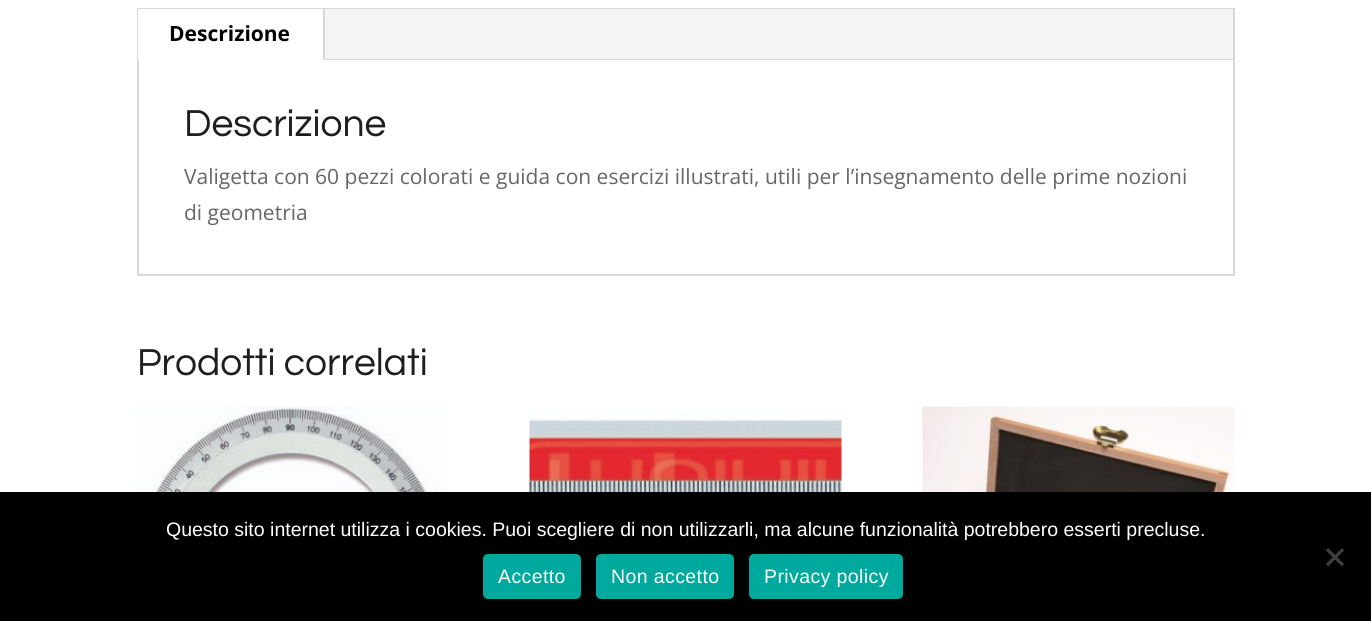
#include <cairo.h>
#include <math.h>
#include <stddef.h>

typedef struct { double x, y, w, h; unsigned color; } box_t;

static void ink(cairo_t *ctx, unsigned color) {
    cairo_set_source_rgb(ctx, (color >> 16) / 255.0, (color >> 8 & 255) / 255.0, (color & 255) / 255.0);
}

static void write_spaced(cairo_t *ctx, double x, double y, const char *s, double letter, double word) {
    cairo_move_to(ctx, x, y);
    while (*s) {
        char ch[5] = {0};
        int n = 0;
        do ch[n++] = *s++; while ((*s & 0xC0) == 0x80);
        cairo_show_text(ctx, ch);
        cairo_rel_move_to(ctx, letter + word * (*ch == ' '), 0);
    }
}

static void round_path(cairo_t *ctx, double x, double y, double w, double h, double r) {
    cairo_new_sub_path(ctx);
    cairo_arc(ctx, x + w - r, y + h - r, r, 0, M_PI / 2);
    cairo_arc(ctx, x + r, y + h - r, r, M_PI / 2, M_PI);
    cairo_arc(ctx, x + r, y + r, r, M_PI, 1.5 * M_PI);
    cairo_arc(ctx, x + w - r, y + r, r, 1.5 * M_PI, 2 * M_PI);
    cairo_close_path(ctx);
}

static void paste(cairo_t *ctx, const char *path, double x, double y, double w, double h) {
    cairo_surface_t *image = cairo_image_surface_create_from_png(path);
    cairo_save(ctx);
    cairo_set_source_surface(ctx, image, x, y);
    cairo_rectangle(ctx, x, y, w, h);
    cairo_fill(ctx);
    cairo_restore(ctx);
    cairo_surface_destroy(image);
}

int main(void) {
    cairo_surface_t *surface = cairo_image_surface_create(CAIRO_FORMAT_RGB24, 1371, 621);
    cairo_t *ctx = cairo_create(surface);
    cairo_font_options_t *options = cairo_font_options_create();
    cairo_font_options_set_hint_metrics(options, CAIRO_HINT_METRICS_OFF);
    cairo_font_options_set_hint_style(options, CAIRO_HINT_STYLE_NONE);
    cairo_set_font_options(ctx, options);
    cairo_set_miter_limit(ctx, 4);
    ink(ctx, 0xFFFFFF);
    cairo_paint(ctx);
    cairo_rectangle(ctx, 138, 9, 1096, 266);
    ink(ctx, 0xD9D9D9);
    cairo_stroke(ctx);
    {
        static const box_t items[] = {
            {325, 9, 908, 50, 0xF4F4F4},
            {138, 9, 185, 51, 0xFFFFFF},
            {323, 9, 2, 51, 0xD9D9D9},
        };
        for (size_t i = 0; i < sizeof items / sizeof *items; i++) {
            ink(ctx, items[i].color);
            cairo_rectangle(ctx, items[i].x, items[i].y, items[i].w, items[i].h);
            cairo_fill(ctx);
        }
    }
    cairo_select_font_face(ctx, "Open Sans", CAIRO_FONT_SLANT_NORMAL, CAIRO_FONT_WEIGHT_BOLD);
    cairo_set_font_size(ctx, 21);
    ink(ctx, 0x000000);
    cairo_move_to(ctx, 169, 41);
    cairo_show_text(ctx, "Descrizione");
    ink(ctx, 0xD9D9D9);
    cairo_rectangle(ctx, 325, 59, 908, 1);
    cairo_fill(ctx);
    cairo_select_font_face(ctx, "Questrial", CAIRO_FONT_SLANT_NORMAL, CAIRO_FONT_WEIGHT_NORMAL);
    cairo_set_font_size(ctx, 39);
    ink(ctx, 0x1E1E1E);
    cairo_move_to(ctx, 184, 136);
    cairo_show_text(ctx, "Descrizione");
    cairo_select_font_face(ctx, "Open Sans", CAIRO_FONT_SLANT_NORMAL, CAIRO_FONT_WEIGHT_NORMAL);
    cairo_set_font_size(ctx, 21);
    ink(ctx, 0x666666);
    cairo_move_to(ctx, 184, 184);
    cairo_show_text(ctx, "Valigetta con 60 pezzi colorati e guida con esercizi illustrati, utili per l’insegnamento delle prime nozioni");
    cairo_move_to(ctx, 184, 220);
    cairo_show_text(ctx, "di geometria");
    cairo_select_font_face(ctx, "Questrial", CAIRO_FONT_SLANT_NORMAL, CAIRO_FONT_WEIGHT_NORMAL);
    cairo_set_font_size(ctx, 39);
    ink(ctx, 0x1E1E1E);
    cairo_move_to(ctx, 137, 375);
    cairo_show_text(ctx, "Prodotti correlati");
    paste(ctx, "media/1.png", 136, 406, 312, 86);
    paste(ctx, "media/2.png", 529, 411, 313, 81);
    paste(ctx, "media/3.png", 922, 406, 313, 86);
    ink(ctx, 0x000000);
    cairo_rectangle(ctx, 0, 492, 1371, 129);
    cairo_fill(ctx);
    cairo_select_font_face(ctx, "Liberation Sans", CAIRO_FONT_SLANT_NORMAL, CAIRO_FONT_WEIGHT_NORMAL);
    cairo_set_font_size(ctx, 19.5);
    ink(ctx, 0xFFFFFF);
    cairo_move_to(ctx, 166, 536);
    cairo_show_text(ctx, "Questo sito internet utilizza i cookies. Puoi scegliere di non utilizzarli, ma alcune funzionalità potrebbero esserti precluse.");
    ink(ctx, 0x404040);
    cairo_new_path(ctx);
    cairo_move_to(ctx, 1342, 548);
    cairo_line_to(ctx, 1344, 550.5);
    cairo_line_to(ctx, 1328, 566.5);
    cairo_line_to(ctx, 1326, 564);
    cairo_close_path(ctx);
    cairo_fill(ctx);
    cairo_new_path(ctx);
    cairo_move_to(ctx, 1326, 550.5);
    cairo_line_to(ctx, 1328, 548);
    cairo_line_to(ctx, 1344, 564);
    cairo_line_to(ctx, 1342, 566.5);
    cairo_close_path(ctx);
    cairo_fill(ctx);
    ink(ctx, 0x00A99D);
    round_path(ctx, 483, 554, 98, 45, 5);
    cairo_fill(ctx);
    ink(ctx, 0xFFFFFF);
    write_spaced(ctx, 498, 583, "Accetto", 0.4, 0);
    ink(ctx, 0x00A99D);
    round_path(ctx, 596, 554, 138, 45, 5);
    cairo_fill(ctx);
    ink(ctx, 0xFFFFFF);
    write_spaced(ctx, 611, 583, "Non accetto", 0.4, 0);
    ink(ctx, 0x00A99D);
    round_path(ctx, 749, 554, 154, 45, 5);
    cairo_fill(ctx);
    ink(ctx, 0xFFFFFF);
    write_spaced(ctx, 764, 583, "Privacy policy", 0.4, 0);
    cairo_surface_write_to_png(surface, "image.png");
    cairo_font_options_destroy(options);
    cairo_destroy(ctx);
    cairo_surface_destroy(surface);
    return 0;
}
